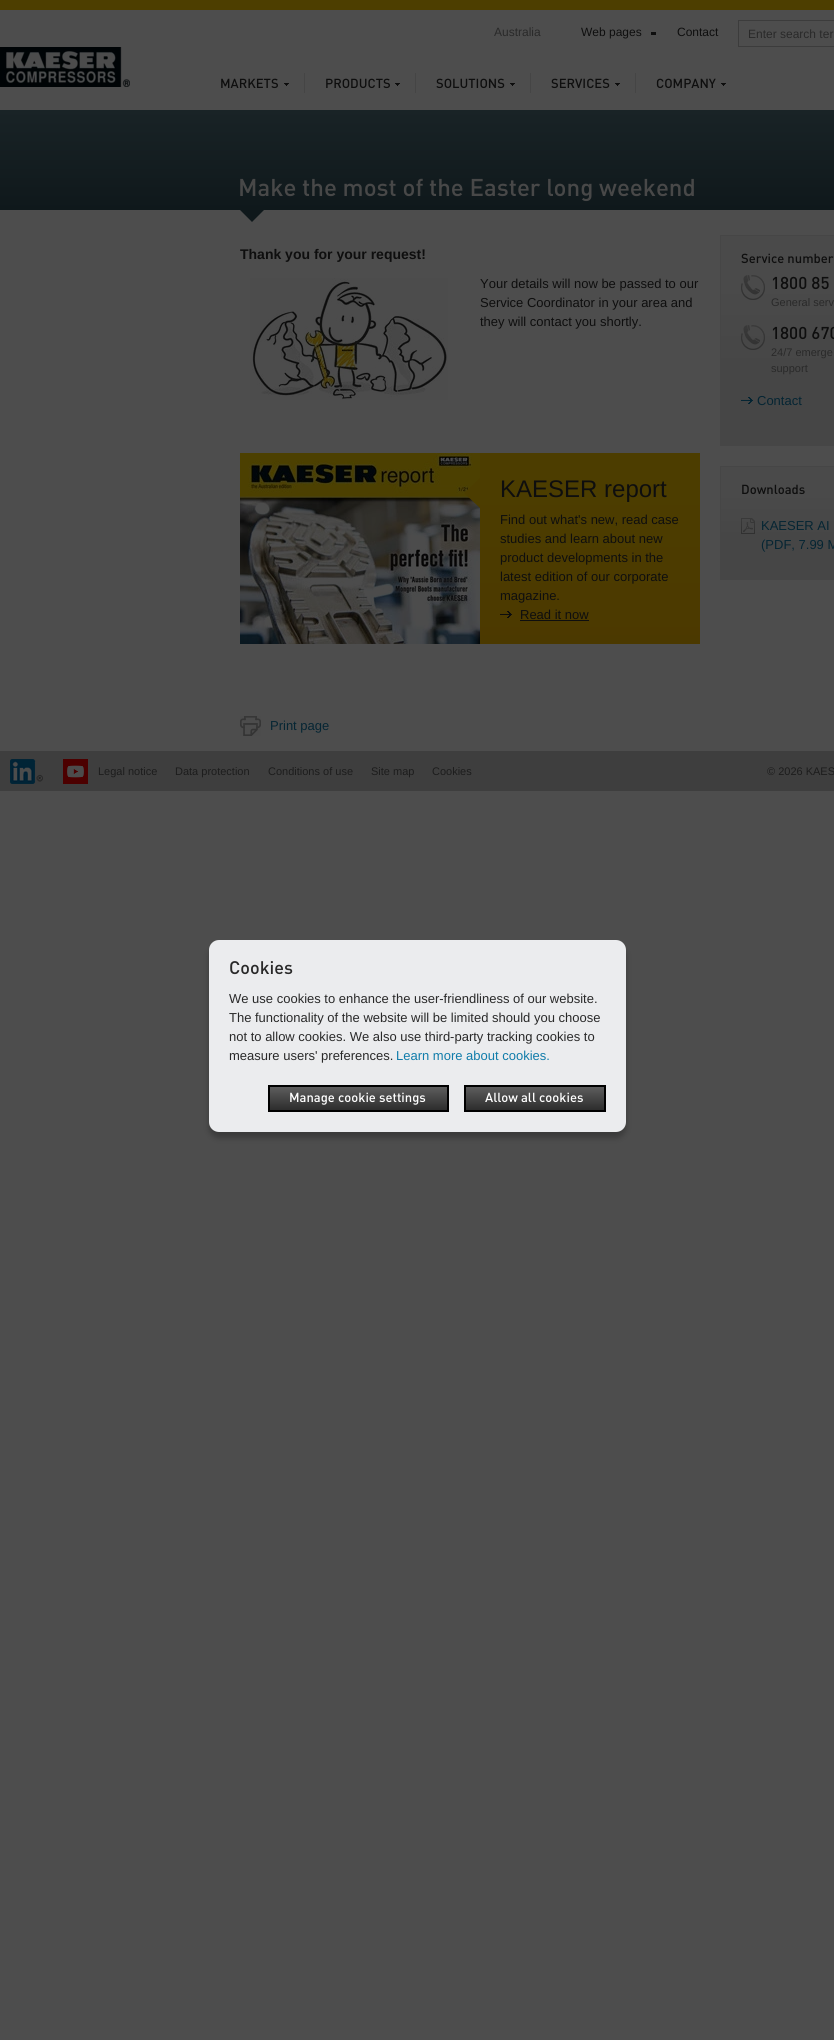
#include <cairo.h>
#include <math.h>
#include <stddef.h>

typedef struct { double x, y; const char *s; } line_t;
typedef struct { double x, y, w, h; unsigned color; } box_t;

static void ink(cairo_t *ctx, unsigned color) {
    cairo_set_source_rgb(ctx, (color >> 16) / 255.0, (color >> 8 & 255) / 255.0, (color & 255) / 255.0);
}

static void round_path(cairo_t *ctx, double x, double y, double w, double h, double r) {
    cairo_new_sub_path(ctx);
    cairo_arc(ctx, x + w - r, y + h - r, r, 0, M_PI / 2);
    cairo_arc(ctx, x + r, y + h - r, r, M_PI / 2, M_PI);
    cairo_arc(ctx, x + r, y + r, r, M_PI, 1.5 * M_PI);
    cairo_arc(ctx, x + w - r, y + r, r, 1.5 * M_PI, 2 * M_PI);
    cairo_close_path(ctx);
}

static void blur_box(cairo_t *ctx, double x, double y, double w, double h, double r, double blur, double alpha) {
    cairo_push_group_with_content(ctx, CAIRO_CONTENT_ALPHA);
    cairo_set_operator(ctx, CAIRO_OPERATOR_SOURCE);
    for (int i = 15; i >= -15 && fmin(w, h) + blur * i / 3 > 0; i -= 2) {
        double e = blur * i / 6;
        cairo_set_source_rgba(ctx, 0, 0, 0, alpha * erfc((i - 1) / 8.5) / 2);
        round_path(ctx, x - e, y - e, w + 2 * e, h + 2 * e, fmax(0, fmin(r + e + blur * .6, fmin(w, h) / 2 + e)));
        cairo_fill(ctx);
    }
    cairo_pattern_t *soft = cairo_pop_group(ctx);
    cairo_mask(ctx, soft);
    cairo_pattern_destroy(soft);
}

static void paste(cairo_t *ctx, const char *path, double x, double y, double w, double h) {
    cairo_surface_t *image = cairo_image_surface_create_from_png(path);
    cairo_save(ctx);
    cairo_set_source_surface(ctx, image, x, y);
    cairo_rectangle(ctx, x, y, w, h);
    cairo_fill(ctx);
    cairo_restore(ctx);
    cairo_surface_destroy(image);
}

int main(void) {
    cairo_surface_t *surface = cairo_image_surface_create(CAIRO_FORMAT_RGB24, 834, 2040);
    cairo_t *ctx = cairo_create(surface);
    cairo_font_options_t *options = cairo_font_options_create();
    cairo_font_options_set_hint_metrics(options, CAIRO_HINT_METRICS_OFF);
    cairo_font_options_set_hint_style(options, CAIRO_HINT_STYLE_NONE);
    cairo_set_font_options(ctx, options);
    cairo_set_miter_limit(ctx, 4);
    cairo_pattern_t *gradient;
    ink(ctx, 0x4D4D4D);
    cairo_paint(ctx);
    ink(ctx, 0x4D3E00);
    cairo_rectangle(ctx, 0, 0, 834, 10);
    cairo_fill(ctx);
    cairo_select_font_face(ctx, "Liberation Sans", CAIRO_FONT_SLANT_NORMAL, CAIRO_FONT_WEIGHT_NORMAL);
    cairo_set_font_size(ctx, 12);
    ink(ctx, 0x292929);
    cairo_move_to(ctx, 494, 36);
    cairo_show_text(ctx, "Australia");
    ink(ctx, 0x0E0E0E);
    cairo_rectangle(ctx, 651, 32, 5, 3);
    cairo_fill(ctx);
    cairo_move_to(ctx, 581, 36);
    cairo_show_text(ctx, "Web pages");
    cairo_move_to(ctx, 677, 36);
    cairo_show_text(ctx, "Contact");
    {
        static const box_t items[] = {
            {738, 20, 96, 1, 0x3C3C3C},
            {738, 46, 96, 1, 0x3C3C3C},
            {738, 20, 1, 27, 0x3C3C3C},
        };
        for (size_t i = 0; i < sizeof items / sizeof *items; i++) {
            ink(ctx, items[i].color);
            cairo_rectangle(ctx, items[i].x, items[i].y, items[i].w, items[i].h);
            cairo_fill(ctx);
        }
    }
    ink(ctx, 0x292929);
    cairo_move_to(ctx, 748, 38);
    cairo_show_text(ctx, "Enter search ter");
    paste(ctx, "media/1.png", 0, 47, 130, 40);
    ink(ctx, 0x454545);
    cairo_rectangle(ctx, 304, 73, 1, 20);
    cairo_fill(ctx);
    paste(ctx, "media/2.png", 284, 83, 5, 3);
    cairo_select_font_face(ctx, "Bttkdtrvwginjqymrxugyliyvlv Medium", CAIRO_FONT_SLANT_NORMAL, CAIRO_FONT_WEIGHT_NORMAL);
    cairo_set_font_size(ctx, 13);
    ink(ctx, 0x0E0E0E);
    cairo_move_to(ctx, 220, 88);
    cairo_show_text(ctx, "MARKETS");
    ink(ctx, 0x454545);
    cairo_rectangle(ctx, 415, 73, 1, 20);
    cairo_fill(ctx);
    paste(ctx, "media/2.png", 395, 83, 5, 3);
    ink(ctx, 0x0E0E0E);
    cairo_move_to(ctx, 325, 88);
    cairo_show_text(ctx, "PRODUCTS");
    ink(ctx, 0x454545);
    cairo_rectangle(ctx, 530, 73, 1, 20);
    cairo_fill(ctx);
    paste(ctx, "media/2.png", 510, 83, 5, 3);
    ink(ctx, 0x0E0E0E);
    cairo_move_to(ctx, 436, 88);
    cairo_show_text(ctx, "SOLUTIONS");
    ink(ctx, 0x454545);
    cairo_rectangle(ctx, 635, 73, 1, 20);
    cairo_fill(ctx);
    paste(ctx, "media/2.png", 615, 83, 5, 3);
    ink(ctx, 0x0E0E0E);
    cairo_move_to(ctx, 551, 88);
    cairo_show_text(ctx, "SERVICES");
    paste(ctx, "media/2.png", 721, 83, 5, 3);
    cairo_move_to(ctx, 656, 88);
    cairo_show_text(ctx, "COMPANY");
    gradient = cairo_pattern_create_linear(470, 110, 470, 210);
    cairo_pattern_add_color_stop_rgba(gradient, 0, 0.098, 0.137, 0.149, 1);
    cairo_pattern_add_color_stop_rgba(gradient, 1, 0.059, 0.094, 0.106, 1);
    cairo_set_source(ctx, gradient);
    cairo_pattern_destroy(gradient);
    cairo_rectangle(ctx, 0, 110, 834, 100);
    cairo_fill(ctx);
    cairo_set_font_size(ctx, 24);
    ink(ctx, 0x484848);
    cairo_move_to(ctx, 238, 196);
    cairo_show_text(ctx, "Make the most of the Easter long weekend");
    ink(ctx, 0x0F181B);
    cairo_new_path(ctx);
    cairo_move_to(ctx, 240, 210);
    cairo_line_to(ctx, 264, 210);
    cairo_line_to(ctx, 252, 222);
    cairo_close_path(ctx);
    cairo_fill(ctx);
    cairo_select_font_face(ctx, "Liberation Sans", CAIRO_FONT_SLANT_NORMAL, CAIRO_FONT_WEIGHT_BOLD);
    cairo_set_font_size(ctx, 14);
    ink(ctx, 0x0E0E0E);
    cairo_move_to(ctx, 240, 259);
    cairo_show_text(ctx, "Thank you for your request!");
    paste(ctx, "media/3.png", 250, 278, 198, 122);
    cairo_select_font_face(ctx, "Liberation Sans", CAIRO_FONT_SLANT_NORMAL, CAIRO_FONT_WEIGHT_NORMAL);
    cairo_set_font_size(ctx, 13);
    {
        static const line_t items[] = {
            {480, 288, "Your details will now be passed to our"},
            {480, 307, "Service Coordinator in your area and"},
            {480, 326, "they will contact you shortly."},
        };
        for (size_t i = 0; i < sizeof items / sizeof *items; i++) {
            cairo_move_to(ctx, items[i].x, items[i].y);
            cairo_show_text(ctx, items[i].s);
        }
    }
    paste(ctx, "media/4.png", 240, 453, 240, 191);
    paste(ctx, "media/5.png", 464, 453, 236, 191);
    cairo_set_font_size(ctx, 24);
    cairo_move_to(ctx, 500, 497);
    cairo_show_text(ctx, "KAESER report");
    cairo_set_font_size(ctx, 13);
    {
        static const line_t items[] = {
            {500, 524, "Find out what's new, read case"},
            {500, 543, "studies and learn about new"},
            {500, 562, "product developments in the"},
            {500, 581, "latest edition of our corporate"},
            {500, 600, "magazine."},
        };
        for (size_t i = 0; i < sizeof items / sizeof *items; i++) {
            cairo_move_to(ctx, items[i].x, items[i].y);
            cairo_show_text(ctx, items[i].s);
        }
    }
    paste(ctx, "media/6.png", 500, 611, 12, 7);
    cairo_move_to(ctx, 520, 619);
    cairo_show_text(ctx, "Read it now");
    cairo_rectangle(ctx, 520, 620, 69, 1);
    cairo_fill(ctx);
    gradient = cairo_pattern_create_linear(830, 236, 830, 445);
    cairo_pattern_add_color_stop_rgba(gradient, 0.23, 0.29, 0.29, 0.29, 1);
    cairo_pattern_add_color_stop_rgba(gradient, 0.62, 0.275, 0.275, 0.275, 1);
    cairo_set_source(ctx, gradient);
    cairo_pattern_destroy(gradient);
    cairo_rectangle(ctx, 721, 236, 113, 209);
    cairo_fill(ctx);
    cairo_rectangle(ctx, 720.5, 235.5, 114, 210);
    ink(ctx, 0x464646);
    cairo_set_line_width(ctx, 1);
    cairo_stroke(ctx);
    cairo_select_font_face(ctx, "Bttkdtrvwginjqymrxugyliyvlv Medium", CAIRO_FONT_SLANT_NORMAL, CAIRO_FONT_WEIGHT_NORMAL);
    ink(ctx, 0x0E0E0E);
    cairo_move_to(ctx, 741, 263);
    cairo_show_text(ctx, "Service number");
    paste(ctx, "media/7.png", 741, 275, 24, 25);
    cairo_set_font_size(ctx, 17);
    cairo_move_to(ctx, 771, 289);
    cairo_show_text(ctx, "1800 85");
    cairo_select_font_face(ctx, "Liberation Sans", CAIRO_FONT_SLANT_NORMAL, CAIRO_FONT_WEIGHT_NORMAL);
    cairo_set_font_size(ctx, 11);
    ink(ctx, 0x292929);
    cairo_move_to(ctx, 771, 306);
    cairo_show_text(ctx, "General serv");
    paste(ctx, "media/8.png", 741, 325, 24, 25);
    cairo_select_font_face(ctx, "Bttkdtrvwginjqymrxugyliyvlv Medium", CAIRO_FONT_SLANT_NORMAL, CAIRO_FONT_WEIGHT_NORMAL);
    cairo_set_font_size(ctx, 17);
    ink(ctx, 0x0E0E0E);
    cairo_move_to(ctx, 771, 339);
    cairo_show_text(ctx, "1800 670");
    cairo_select_font_face(ctx, "Liberation Sans", CAIRO_FONT_SLANT_NORMAL, CAIRO_FONT_WEIGHT_NORMAL);
    cairo_set_font_size(ctx, 11);
    ink(ctx, 0x292929);
    cairo_move_to(ctx, 771, 356);
    cairo_show_text(ctx, "24/7 emerge");
    cairo_move_to(ctx, 771, 372);
    cairo_show_text(ctx, "support");
    paste(ctx, "media/9.png", 741, 397, 12, 7);
    cairo_set_font_size(ctx, 13);
    ink(ctx, 0x052533);
    cairo_move_to(ctx, 757, 405);
    cairo_show_text(ctx, "Contact");
    gradient = cairo_pattern_create_linear(830, 467, 830, 579);
    cairo_pattern_add_color_stop_rgba(gradient, 0.23, 0.29, 0.29, 0.29, 1);
    cairo_pattern_add_color_stop_rgba(gradient, 0.62, 0.275, 0.275, 0.275, 1);
    cairo_set_source(ctx, gradient);
    cairo_pattern_destroy(gradient);
    cairo_rectangle(ctx, 721, 467, 113, 112);
    cairo_fill(ctx);
    cairo_rectangle(ctx, 720.5, 466.5, 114, 113);
    ink(ctx, 0x464646);
    cairo_stroke(ctx);
    cairo_select_font_face(ctx, "Bttkdtrvwginjqymrxugyliyvlv Medium", CAIRO_FONT_SLANT_NORMAL, CAIRO_FONT_WEIGHT_NORMAL);
    ink(ctx, 0x0E0E0E);
    cairo_move_to(ctx, 741, 494);
    cairo_show_text(ctx, "Downloads");
    paste(ctx, "media/10.png", 741, 518, 14, 16);
    cairo_select_font_face(ctx, "Liberation Sans", CAIRO_FONT_SLANT_NORMAL, CAIRO_FONT_WEIGHT_NORMAL);
    ink(ctx, 0x052533);
    cairo_move_to(ctx, 761, 530);
    cairo_show_text(ctx, "KAESER AI");
    cairo_move_to(ctx, 761, 549);
    cairo_show_text(ctx, "(PDF, 7.99 M");
    paste(ctx, "media/11.png", 240, 716, 21, 20);
    cairo_move_to(ctx, 270, 730);
    cairo_show_text(ctx, "Print page");
    ink(ctx, 0x3E3E3E);
    cairo_rectangle(ctx, 0, 751, 834, 40);
    cairo_fill(ctx);
    paste(ctx, "media/12.png", 10, 759, 33, 25);
    paste(ctx, "media/13.png", 63, 759, 25, 25);
    cairo_set_font_size(ctx, 11);
    ink(ctx, 0x1C1C1C);
    {
        static const line_t items[] = {
            {98, 775, "Legal notice"},
            {175, 775, "Data protection"},
            {268, 775, "Conditions of use"},
            {371, 775, "Site map"},
            {432, 775, "Cookies"},
            {767, 775, "© 2026 KAES"},
        };
        for (size_t i = 0; i < sizeof items / sizeof *items; i++) {
            cairo_move_to(ctx, items[i].x, items[i].y);
            cairo_show_text(ctx, items[i].s);
        }
    }
    ink(ctx, 0x000000);
    blur_box(ctx, 209, 946, 417, 192, 10, 3, 0.25);
    ink(ctx, 0xEBECEE);
    round_path(ctx, 209, 940, 417, 192, 10);
    cairo_fill(ctx);
    cairo_select_font_face(ctx, "Bttkdtrvwginjqymrxugyliyvlv Medium", CAIRO_FONT_SLANT_NORMAL, CAIRO_FONT_WEIGHT_NORMAL);
    cairo_set_font_size(ctx, 18);
    ink(ctx, 0x292929);
    cairo_move_to(ctx, 229, 974);
    cairo_show_text(ctx, "Cookies");
    cairo_select_font_face(ctx, "Liberation Sans", CAIRO_FONT_SLANT_NORMAL, CAIRO_FONT_WEIGHT_NORMAL);
    cairo_set_font_size(ctx, 13);
    {
        static const line_t items[] = {
            {229, 1003, "We use cookies to enhance the user-friendliness of our website."},
            {229, 1022, "The functionality of the website will be limited should you choose"},
            {229, 1041, "not to allow cookies. We also use third-party tracking cookies to"},
            {229, 1060, "measure users' preferences."},
        };
        for (size_t i = 0; i < sizeof items / sizeof *items; i++) {
            cairo_move_to(ctx, items[i].x, items[i].y);
            cairo_show_text(ctx, items[i].s);
        }
    }
    ink(ctx, 0x107CAA);
    cairo_move_to(ctx, 396, 1060);
    cairo_show_text(ctx, "Learn more about cookies.");
    gradient = cairo_pattern_create_linear(358, 1087, 358, 1110);
    cairo_pattern_add_color_stop_rgba(gradient, 0, 0.365, 0.365, 0.365, 1);
    cairo_pattern_add_color_stop_rgba(gradient, 1, 0.176, 0.176, 0.176, 1);
    cairo_set_source(ctx, gradient);
    cairo_pattern_destroy(gradient);
    cairo_rectangle(ctx, 270, 1087, 177, 23);
    cairo_fill(ctx);
    cairo_rectangle(ctx, 269, 1086, 179, 25);
    ink(ctx, 0x000000);
    cairo_set_line_width(ctx, 2);
    cairo_stroke(ctx);
    cairo_select_font_face(ctx, "Bttkdtrvwginjqymrxugyliyvlv Medium", CAIRO_FONT_SLANT_NORMAL, CAIRO_FONT_WEIGHT_NORMAL);
    ink(ctx, 0xFFFFFF);
    cairo_move_to(ctx, 289, 1102);
    cairo_show_text(ctx, "Manage cookie settings");
    gradient = cairo_pattern_create_linear(535, 1087, 535, 1110);
    cairo_pattern_add_color_stop_rgba(gradient, 0, 0.365, 0.365, 0.365, 1);
    cairo_pattern_add_color_stop_rgba(gradient, 1, 0.176, 0.176, 0.176, 1);
    cairo_set_source(ctx, gradient);
    cairo_pattern_destroy(gradient);
    cairo_rectangle(ctx, 466, 1087, 138, 23);
    cairo_fill(ctx);
    cairo_rectangle(ctx, 465, 1086, 140, 25);
    ink(ctx, 0x000000);
    cairo_stroke(ctx);
    ink(ctx, 0xFFFFFF);
    cairo_move_to(ctx, 485, 1102);
    cairo_show_text(ctx, "Allow all cookies");
    cairo_surface_write_to_png(surface, "image.png");
    cairo_font_options_destroy(options);
    cairo_destroy(ctx);
    cairo_surface_destroy(surface);
    return 0;
}
